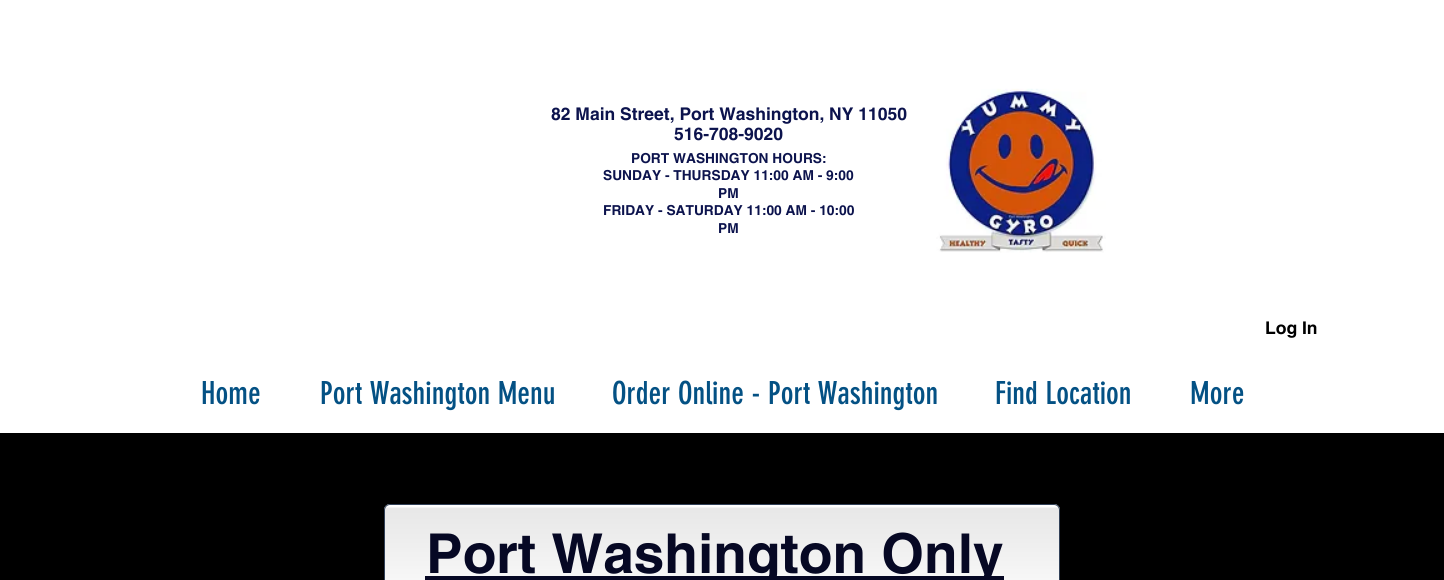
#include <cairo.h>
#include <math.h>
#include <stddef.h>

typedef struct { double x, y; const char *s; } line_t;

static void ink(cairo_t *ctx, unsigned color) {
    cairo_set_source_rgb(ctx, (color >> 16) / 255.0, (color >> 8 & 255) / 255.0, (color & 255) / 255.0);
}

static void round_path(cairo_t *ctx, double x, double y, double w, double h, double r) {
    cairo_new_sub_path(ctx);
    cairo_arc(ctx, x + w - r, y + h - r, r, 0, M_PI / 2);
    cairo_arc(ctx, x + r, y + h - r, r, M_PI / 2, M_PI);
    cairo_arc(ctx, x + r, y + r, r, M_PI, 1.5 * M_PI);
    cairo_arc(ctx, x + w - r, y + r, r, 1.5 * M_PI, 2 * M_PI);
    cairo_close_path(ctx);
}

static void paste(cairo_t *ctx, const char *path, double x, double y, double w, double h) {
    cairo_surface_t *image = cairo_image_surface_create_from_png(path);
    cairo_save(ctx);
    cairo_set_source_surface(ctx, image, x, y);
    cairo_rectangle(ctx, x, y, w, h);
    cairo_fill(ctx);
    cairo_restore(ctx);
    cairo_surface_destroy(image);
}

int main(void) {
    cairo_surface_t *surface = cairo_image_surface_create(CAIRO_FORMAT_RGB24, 1444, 580);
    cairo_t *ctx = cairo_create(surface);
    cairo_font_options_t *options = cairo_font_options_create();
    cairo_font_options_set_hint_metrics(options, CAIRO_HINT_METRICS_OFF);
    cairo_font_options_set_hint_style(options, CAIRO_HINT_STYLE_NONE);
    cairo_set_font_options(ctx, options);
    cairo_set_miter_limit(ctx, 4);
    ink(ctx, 0x000000);
    cairo_paint(ctx);
    ink(ctx, 0xFFFFFF);
    cairo_rectangle(ctx, 0, 0, 1444, 433);
    cairo_fill(ctx);
    cairo_select_font_face(ctx, "helvetica", CAIRO_FONT_SLANT_NORMAL, CAIRO_FONT_WEIGHT_BOLD);
    cairo_set_font_size(ctx, 17.5);
    ink(ctx, 0x0C134D);
    cairo_move_to(ctx, 551, 120);
    cairo_show_text(ctx, "82 Main Street, Port Washington, NY 11050");
    cairo_move_to(ctx, 674, 140);
    cairo_show_text(ctx, "516-708-9020");
    paste(ctx, "media/1.png", 936, 88, 170, 165);
    cairo_set_font_size(ctx, 13.75);
    {
        static const line_t items[] = {
            {631, 163, "PORT WASHINGTON HOURS:"},
            {603, 180, "SUNDAY - THURSDAY 11:00 AM - 9:00"},
            {718, 198, "PM"},
            {603, 215, "FRIDAY - SATURDAY 11:00 AM - 10:00"},
            {718, 233, "PM"},
        };
        for (size_t i = 0; i < sizeof items / sizeof *items; i++) {
            cairo_move_to(ctx, items[i].x, items[i].y);
            cairo_show_text(ctx, items[i].s);
        }
    }
    cairo_set_font_size(ctx, 17.5);
    ink(ctx, 0x000000);
    cairo_move_to(ctx, 1265, 334);
    cairo_show_text(ctx, "Log In");
    cairo_select_font_face(ctx, "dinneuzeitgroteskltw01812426", CAIRO_FONT_SLANT_NORMAL, CAIRO_FONT_WEIGHT_NORMAL);
    cairo_set_font_size(ctx, 31.25);
    ink(ctx, 0x045184);
    {
        static const line_t items[] = {
            {201, 404, "Home"},
            {320, 404, "Port Washington Menu"},
            {612, 404, "Order Online - Port Washington"},
            {995, 404, "Find Location"},
            {1190, 404, "More"},
        };
        for (size_t i = 0; i < sizeof items / sizeof *items; i++) {
            cairo_move_to(ctx, items[i].x, items[i].y);
            cairo_show_text(ctx, items[i].s);
        }
    }
    ink(ctx, 0xFFFFFF);
    round_path(ctx, 384, 504, 676, 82, 6);
    cairo_fill(ctx);
    paste(ctx, "media/2.png", 384, 507, 676, 73);
    round_path(ctx, 384.5, 504.5, 675, 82, 5.5);
    ink(ctx, 0x324158);
    cairo_set_line_width(ctx, 1);
    cairo_stroke(ctx);
    ink(ctx, 0x060824);
    cairo_rectangle(ctx, 425, 576, 579, 4);
    cairo_fill(ctx);
    cairo_select_font_face(ctx, "helvetica", CAIRO_FONT_SLANT_NORMAL, CAIRO_FONT_WEIGHT_BOLD);
    cairo_set_font_size(ctx, 55);
    cairo_move_to(ctx, 426, 573);
    cairo_show_text(ctx, "Port Washington Only");
    cairo_surface_write_to_png(surface, "image.png");
    cairo_font_options_destroy(options);
    cairo_destroy(ctx);
    cairo_surface_destroy(surface);
    return 0;
}
